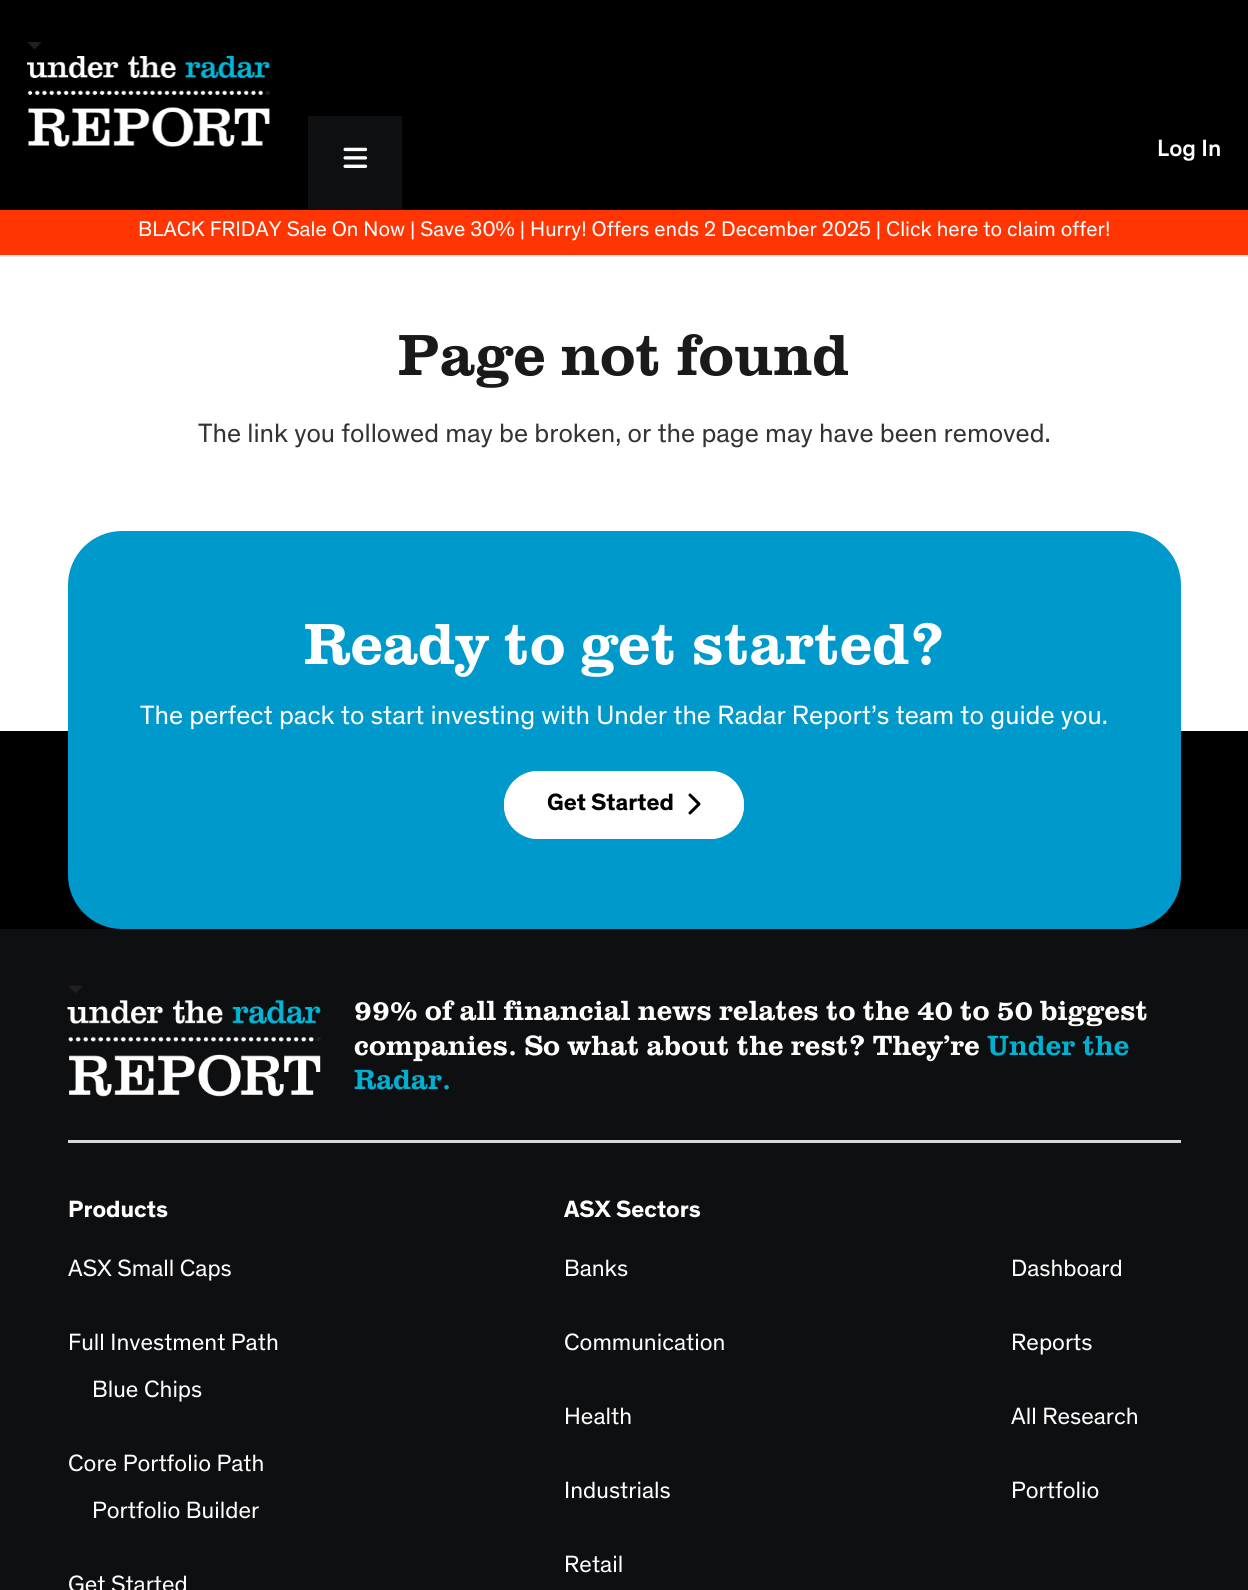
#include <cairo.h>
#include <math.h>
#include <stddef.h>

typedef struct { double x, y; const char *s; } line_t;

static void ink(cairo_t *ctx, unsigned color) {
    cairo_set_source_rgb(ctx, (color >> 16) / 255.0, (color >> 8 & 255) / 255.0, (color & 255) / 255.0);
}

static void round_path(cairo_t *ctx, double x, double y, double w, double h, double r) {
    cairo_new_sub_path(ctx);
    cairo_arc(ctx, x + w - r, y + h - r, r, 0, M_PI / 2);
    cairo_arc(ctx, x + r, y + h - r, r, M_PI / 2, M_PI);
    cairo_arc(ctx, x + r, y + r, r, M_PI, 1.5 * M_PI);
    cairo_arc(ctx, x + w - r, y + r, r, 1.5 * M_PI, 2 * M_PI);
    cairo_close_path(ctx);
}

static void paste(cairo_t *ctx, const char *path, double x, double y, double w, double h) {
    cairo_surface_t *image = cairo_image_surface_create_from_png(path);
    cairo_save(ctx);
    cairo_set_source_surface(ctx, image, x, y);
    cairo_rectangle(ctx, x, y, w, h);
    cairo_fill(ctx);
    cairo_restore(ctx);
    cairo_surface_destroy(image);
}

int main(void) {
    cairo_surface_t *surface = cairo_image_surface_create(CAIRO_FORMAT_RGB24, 1248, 1590);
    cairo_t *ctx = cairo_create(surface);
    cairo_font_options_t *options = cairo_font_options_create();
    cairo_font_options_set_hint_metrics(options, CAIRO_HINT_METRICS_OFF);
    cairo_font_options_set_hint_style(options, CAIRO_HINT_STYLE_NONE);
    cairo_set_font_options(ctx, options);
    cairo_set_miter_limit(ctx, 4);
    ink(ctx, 0xFFFFFF);
    cairo_paint(ctx);
    ink(ctx, 0x000000);
    cairo_rectangle(ctx, 0, 0, 1248, 210);
    cairo_fill(ctx);
    paste(ctx, "media/1.png", 27, 42, 243, 105);
    ink(ctx, 0x0E0F11);
    cairo_rectangle(ctx, 308, 116, 94, 94);
    cairo_fill(ctx);
    paste(ctx, "media/2.png", 343, 147, 25, 21);
    cairo_select_font_face(ctx, "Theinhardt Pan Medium", CAIRO_FONT_SLANT_NORMAL, CAIRO_FONT_WEIGHT_NORMAL);
    cairo_set_font_size(ctx, 24);
    ink(ctx, 0xFFFFFF);
    cairo_move_to(ctx, 1157, 156);
    cairo_show_text(ctx, "Log In");
    ink(ctx, 0xEBEBEB);
    cairo_rectangle(ctx, 0, 255, 1248, 2);
    cairo_fill(ctx);
    ink(ctx, 0xFF3604);
    cairo_rectangle(ctx, 0, 210, 1248, 45);
    cairo_fill(ctx);
    cairo_select_font_face(ctx, "Theinhardt Pan", CAIRO_FONT_SLANT_NORMAL, CAIRO_FONT_WEIGHT_NORMAL);
    cairo_set_font_size(ctx, 21.6);
    ink(ctx, 0xFFFFFF);
    cairo_move_to(ctx, 138, 236);
    cairo_show_text(ctx, "BLACK FRIDAY Sale On Now | Save 30% | Hurry! Offers ends 2 December 2025 | Click here to claim offer!");
    cairo_select_font_face(ctx, "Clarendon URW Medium", CAIRO_FONT_SLANT_NORMAL, CAIRO_FONT_WEIGHT_NORMAL);
    cairo_set_font_size(ctx, 59.9);
    ink(ctx, 0x1A1A1A);
    cairo_move_to(ctx, 398, 375);
    cairo_show_text(ctx, "Page not found");
    cairo_select_font_face(ctx, "Theinhardt Pan", CAIRO_FONT_SLANT_NORMAL, CAIRO_FONT_WEIGHT_NORMAL);
    cairo_set_font_size(ctx, 27);
    ink(ctx, 0x333333);
    cairo_move_to(ctx, 198, 442);
    cairo_show_text(ctx, "The link you followed may be broken, or the page may have been removed.");
    ink(ctx, 0x000000);
    cairo_rectangle(ctx, 0, 731, 1248, 198);
    cairo_fill(ctx);
    ink(ctx, 0x0099CC);
    round_path(ctx, 68, 531, 1113, 398, 54);
    cairo_fill(ctx);
    cairo_select_font_face(ctx, "Clarendon URW Medium", CAIRO_FONT_SLANT_NORMAL, CAIRO_FONT_WEIGHT_NORMAL);
    cairo_set_font_size(ctx, 59.9);
    ink(ctx, 0xFFFFFF);
    cairo_move_to(ctx, 304, 664);
    cairo_show_text(ctx, "Ready to get started?");
    cairo_select_font_face(ctx, "Theinhardt Pan", CAIRO_FONT_SLANT_NORMAL, CAIRO_FONT_WEIGHT_NORMAL);
    cairo_set_font_size(ctx, 27);
    cairo_move_to(ctx, 140, 724);
    cairo_show_text(ctx, "The perfect pack to start investing with Under the Radar Report’s team to guide you.");
    round_path(ctx, 504, 771, 240, 68, 34);
    cairo_fill(ctx);
    paste(ctx, "media/3.png", 688, 793, 13, 22);
    round_path(ctx, 505.5, 772.5, 237, 65, 32.5);
    cairo_set_line_width(ctx, 3);
    cairo_stroke(ctx);
    cairo_select_font_face(ctx, "Theinhardt Pan", CAIRO_FONT_SLANT_NORMAL, CAIRO_FONT_WEIGHT_BOLD);
    cairo_set_font_size(ctx, 24);
    ink(ctx, 0x000000);
    cairo_move_to(ctx, 547, 810);
    cairo_show_text(ctx, "Get Started");
    ink(ctx, 0x0E0F11);
    cairo_rectangle(ctx, 0, 929, 1248, 661);
    cairo_fill(ctx);
    paste(ctx, "media/4.png", 67, 985, 254, 112);
    cairo_select_font_face(ctx, "Clarendon URW Medium", CAIRO_FONT_SLANT_NORMAL, CAIRO_FONT_WEIGHT_NORMAL);
    cairo_set_font_size(ctx, 28.8);
    ink(ctx, 0xFFFFFF);
    cairo_move_to(ctx, 354, 1020);
    cairo_show_text(ctx, "99% of all financial news relates to the 40 to 50 biggest");
    cairo_move_to(ctx, 354, 1055);
    cairo_show_text(ctx, "companies. So what about the rest? They’re");
    ink(ctx, 0x00B0D1);
    cairo_move_to(ctx, 987, 1055);
    cairo_show_text(ctx, "Under the");
    cairo_move_to(ctx, 354, 1089);
    cairo_show_text(ctx, "Radar.");
    ink(ctx, 0xD8D8D8);
    cairo_rectangle(ctx, 68, 1140, 1113, 3);
    cairo_fill(ctx);
    cairo_select_font_face(ctx, "Theinhardt Pan", CAIRO_FONT_SLANT_NORMAL, CAIRO_FONT_WEIGHT_BOLD);
    cairo_set_font_size(ctx, 24);
    ink(ctx, 0xFFFFFF);
    cairo_move_to(ctx, 68, 1217);
    cairo_show_text(ctx, "Products");
    cairo_select_font_face(ctx, "Theinhardt Pan", CAIRO_FONT_SLANT_NORMAL, CAIRO_FONT_WEIGHT_NORMAL);
    {
        static const line_t items[] = {
            {68, 1276, "ASX Small Caps"},
            {68, 1350, "Full Investment Path"},
            {92, 1397, "Blue Chips"},
            {68, 1471, "Core Portfolio Path"},
            {92, 1518, "Portfolio Builder"},
            {68, 1592, "Get Started"},
        };
        for (size_t i = 0; i < sizeof items / sizeof *items; i++) {
            cairo_move_to(ctx, items[i].x, items[i].y);
            cairo_show_text(ctx, items[i].s);
        }
    }
    cairo_select_font_face(ctx, "Theinhardt Pan", CAIRO_FONT_SLANT_NORMAL, CAIRO_FONT_WEIGHT_BOLD);
    cairo_move_to(ctx, 564, 1217);
    cairo_show_text(ctx, "ASX Sectors");
    cairo_select_font_face(ctx, "Theinhardt Pan", CAIRO_FONT_SLANT_NORMAL, CAIRO_FONT_WEIGHT_NORMAL);
    {
        static const line_t items[] = {
            {564, 1276, "Banks"},
            {564, 1350, "Communication"},
            {564, 1424, "Health"},
            {564, 1498, "Industrials"},
            {564, 1572, "Retail"},
            {1011, 1276, "Dashboard"},
            {1011, 1350, "Reports"},
            {1011, 1424, "All Research"},
            {1011, 1498, "Portfolio"},
        };
        for (size_t i = 0; i < sizeof items / sizeof *items; i++) {
            cairo_move_to(ctx, items[i].x, items[i].y);
            cairo_show_text(ctx, items[i].s);
        }
    }
    cairo_surface_write_to_png(surface, "image.png");
    cairo_font_options_destroy(options);
    cairo_destroy(ctx);
    cairo_surface_destroy(surface);
    return 0;
}
